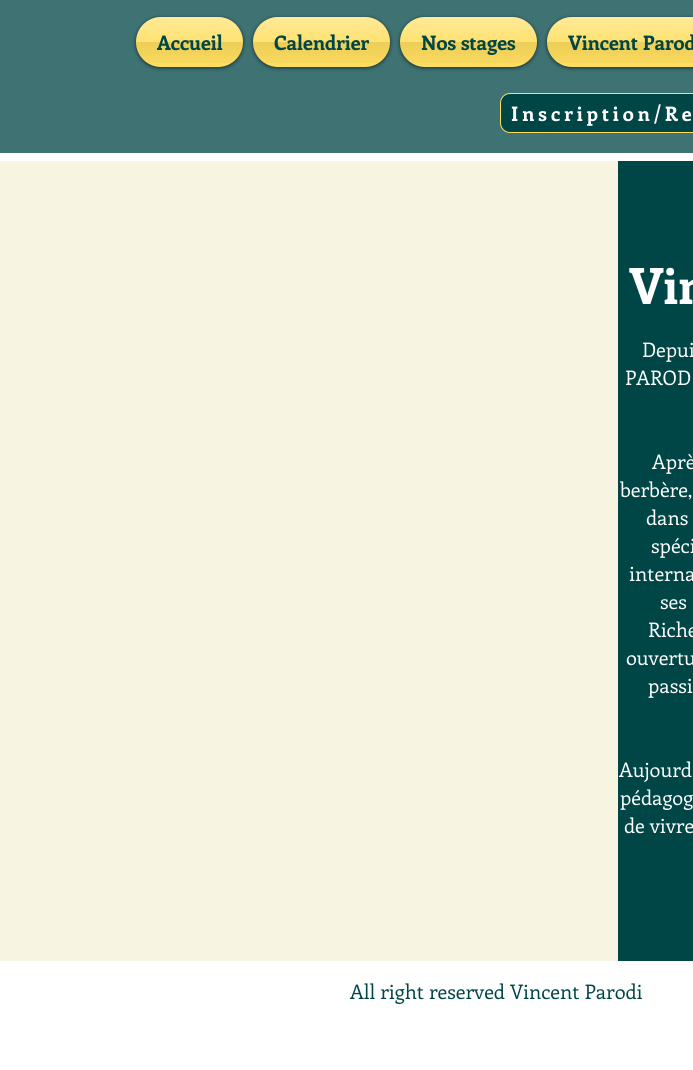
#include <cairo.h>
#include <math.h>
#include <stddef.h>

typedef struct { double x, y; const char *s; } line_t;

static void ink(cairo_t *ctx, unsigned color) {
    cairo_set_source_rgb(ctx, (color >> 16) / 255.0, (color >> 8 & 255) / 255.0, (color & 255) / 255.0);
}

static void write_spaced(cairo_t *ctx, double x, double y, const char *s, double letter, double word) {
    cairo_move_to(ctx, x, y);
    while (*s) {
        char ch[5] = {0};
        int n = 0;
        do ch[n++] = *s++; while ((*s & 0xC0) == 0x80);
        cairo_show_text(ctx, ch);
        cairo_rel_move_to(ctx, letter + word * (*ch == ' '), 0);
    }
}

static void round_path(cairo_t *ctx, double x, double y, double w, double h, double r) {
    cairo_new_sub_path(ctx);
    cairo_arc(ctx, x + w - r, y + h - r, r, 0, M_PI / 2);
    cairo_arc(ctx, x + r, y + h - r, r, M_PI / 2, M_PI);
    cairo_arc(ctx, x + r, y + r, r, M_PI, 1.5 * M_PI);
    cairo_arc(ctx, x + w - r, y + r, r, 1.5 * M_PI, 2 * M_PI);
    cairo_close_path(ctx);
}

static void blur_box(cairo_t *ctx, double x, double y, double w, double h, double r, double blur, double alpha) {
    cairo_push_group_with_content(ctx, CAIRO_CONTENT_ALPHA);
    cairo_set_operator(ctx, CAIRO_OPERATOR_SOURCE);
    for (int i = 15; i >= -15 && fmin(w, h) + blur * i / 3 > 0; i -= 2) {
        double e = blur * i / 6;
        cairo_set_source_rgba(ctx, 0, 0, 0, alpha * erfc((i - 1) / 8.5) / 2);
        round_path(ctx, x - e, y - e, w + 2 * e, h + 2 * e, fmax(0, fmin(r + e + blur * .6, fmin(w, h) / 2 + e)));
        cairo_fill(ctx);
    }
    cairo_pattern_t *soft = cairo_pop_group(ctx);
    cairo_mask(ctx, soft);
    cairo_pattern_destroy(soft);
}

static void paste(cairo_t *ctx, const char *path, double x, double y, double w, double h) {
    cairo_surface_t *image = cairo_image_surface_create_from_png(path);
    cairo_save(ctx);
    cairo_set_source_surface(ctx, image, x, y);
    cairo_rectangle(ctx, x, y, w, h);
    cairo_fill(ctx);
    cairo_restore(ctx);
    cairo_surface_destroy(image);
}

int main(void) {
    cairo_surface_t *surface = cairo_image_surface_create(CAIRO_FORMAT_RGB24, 693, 1070);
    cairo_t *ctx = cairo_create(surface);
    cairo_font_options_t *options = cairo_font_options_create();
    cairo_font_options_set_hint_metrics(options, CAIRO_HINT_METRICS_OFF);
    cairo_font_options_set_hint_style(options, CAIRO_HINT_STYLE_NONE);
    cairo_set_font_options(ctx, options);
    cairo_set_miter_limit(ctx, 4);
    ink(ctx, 0xFFFFFF);
    cairo_paint(ctx);
    ink(ctx, 0x3E7273);
    cairo_rectangle(ctx, 0, 0, 693, 153);
    cairo_fill(ctx);
    ink(ctx, 0x000000);
    blur_box(ctx, 136, 18, 107, 50, 25, 2, 0.6);
    ink(ctx, 0xFFDE5F);
    round_path(ctx, 136, 17, 107, 50, 25);
    cairo_fill(ctx);
    paste(ctx, "media/1.png", 136, 17, 107, 46);
    cairo_select_font_face(ctx, "Enriqueta", CAIRO_FONT_SLANT_NORMAL, CAIRO_FONT_WEIGHT_BOLD);
    cairo_set_font_size(ctx, 20);
    ink(ctx, 0x014647);
    cairo_move_to(ctx, 157, 50);
    cairo_show_text(ctx, "Accueil");
    ink(ctx, 0x000000);
    blur_box(ctx, 253, 18, 137, 50, 25, 2, 0.6);
    ink(ctx, 0xFFDE5F);
    round_path(ctx, 253, 17, 137, 50, 25);
    cairo_fill(ctx);
    paste(ctx, "media/2.png", 253, 17, 137, 46);
    ink(ctx, 0x014647);
    cairo_move_to(ctx, 274, 50);
    cairo_show_text(ctx, "Calendrier");
    ink(ctx, 0x000000);
    blur_box(ctx, 400, 18, 137, 50, 25, 2, 0.6);
    ink(ctx, 0xFFDE5F);
    round_path(ctx, 400, 17, 137, 50, 25);
    cairo_fill(ctx);
    paste(ctx, "media/3.png", 400, 17, 137, 46);
    ink(ctx, 0x014647);
    cairo_move_to(ctx, 421, 50);
    cairo_show_text(ctx, "Nos stages");
    ink(ctx, 0x000000);
    blur_box(ctx, 547, 18, 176, 50, 25, 2, 0.6);
    ink(ctx, 0xFFDE5F);
    round_path(ctx, 547, 17, 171, 50, 25);
    cairo_fill(ctx);
    paste(ctx, "media/4.png", 547, 17, 146, 46);
    ink(ctx, 0x014647);
    cairo_move_to(ctx, 568, 50);
    cairo_show_text(ctx, "Vincent Parod");
    round_path(ctx, 500.5, 93.5, 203, 39, 9.5);
    cairo_fill_preserve(ctx);
    ink(ctx, 0xFFDE5F);
    cairo_set_line_width(ctx, 1);
    cairo_stroke(ctx);
    ink(ctx, 0xFFFFFF);
    write_spaced(ctx, 511, 121, "Inscription/Re", 4, 0);
    ink(ctx, 0xF7F5E1);
    cairo_rectangle(ctx, 0, 161, 618, 800);
    cairo_fill(ctx);
    ink(ctx, 0x014647);
    cairo_rectangle(ctx, 618, 161, 75, 800);
    cairo_fill(ctx);
    cairo_set_font_size(ctx, 50);
    ink(ctx, 0xFFFFFF);
    cairo_move_to(ctx, 629, 304);
    cairo_show_text(ctx, "Vin");
    cairo_select_font_face(ctx, "Enriqueta", CAIRO_FONT_SLANT_NORMAL, CAIRO_FONT_WEIGHT_NORMAL);
    cairo_set_font_size(ctx, 20);
    {
        static const line_t items[] = {
            {642, 357, "Depui"},
            {625, 385, "PAROD"},
            {652, 469, "Aprè"},
            {620, 497, "berbère,"},
            {646, 525, "dans"},
            {651, 553, "spéci"},
            {629, 581, "interna"},
            {660, 609, "ses"},
            {648, 637, "Riche"},
            {626, 665, "ouvertu"},
            {648, 693, "passi"},
            {619, 777, "Aujourd"},
            {620, 805, "pédagog"},
            {624, 833, "de vivre"},
        };
        for (size_t i = 0; i < sizeof items / sizeof *items; i++) {
            cairo_move_to(ctx, items[i].x, items[i].y);
            cairo_show_text(ctx, items[i].s);
        }
    }
    ink(ctx, 0x014647);
    cairo_move_to(ctx, 350, 999);
    cairo_show_text(ctx, "All right reserved Vincent Parodi");
    cairo_surface_write_to_png(surface, "image.png");
    cairo_font_options_destroy(options);
    cairo_destroy(ctx);
    cairo_surface_destroy(surface);
    return 0;
}
